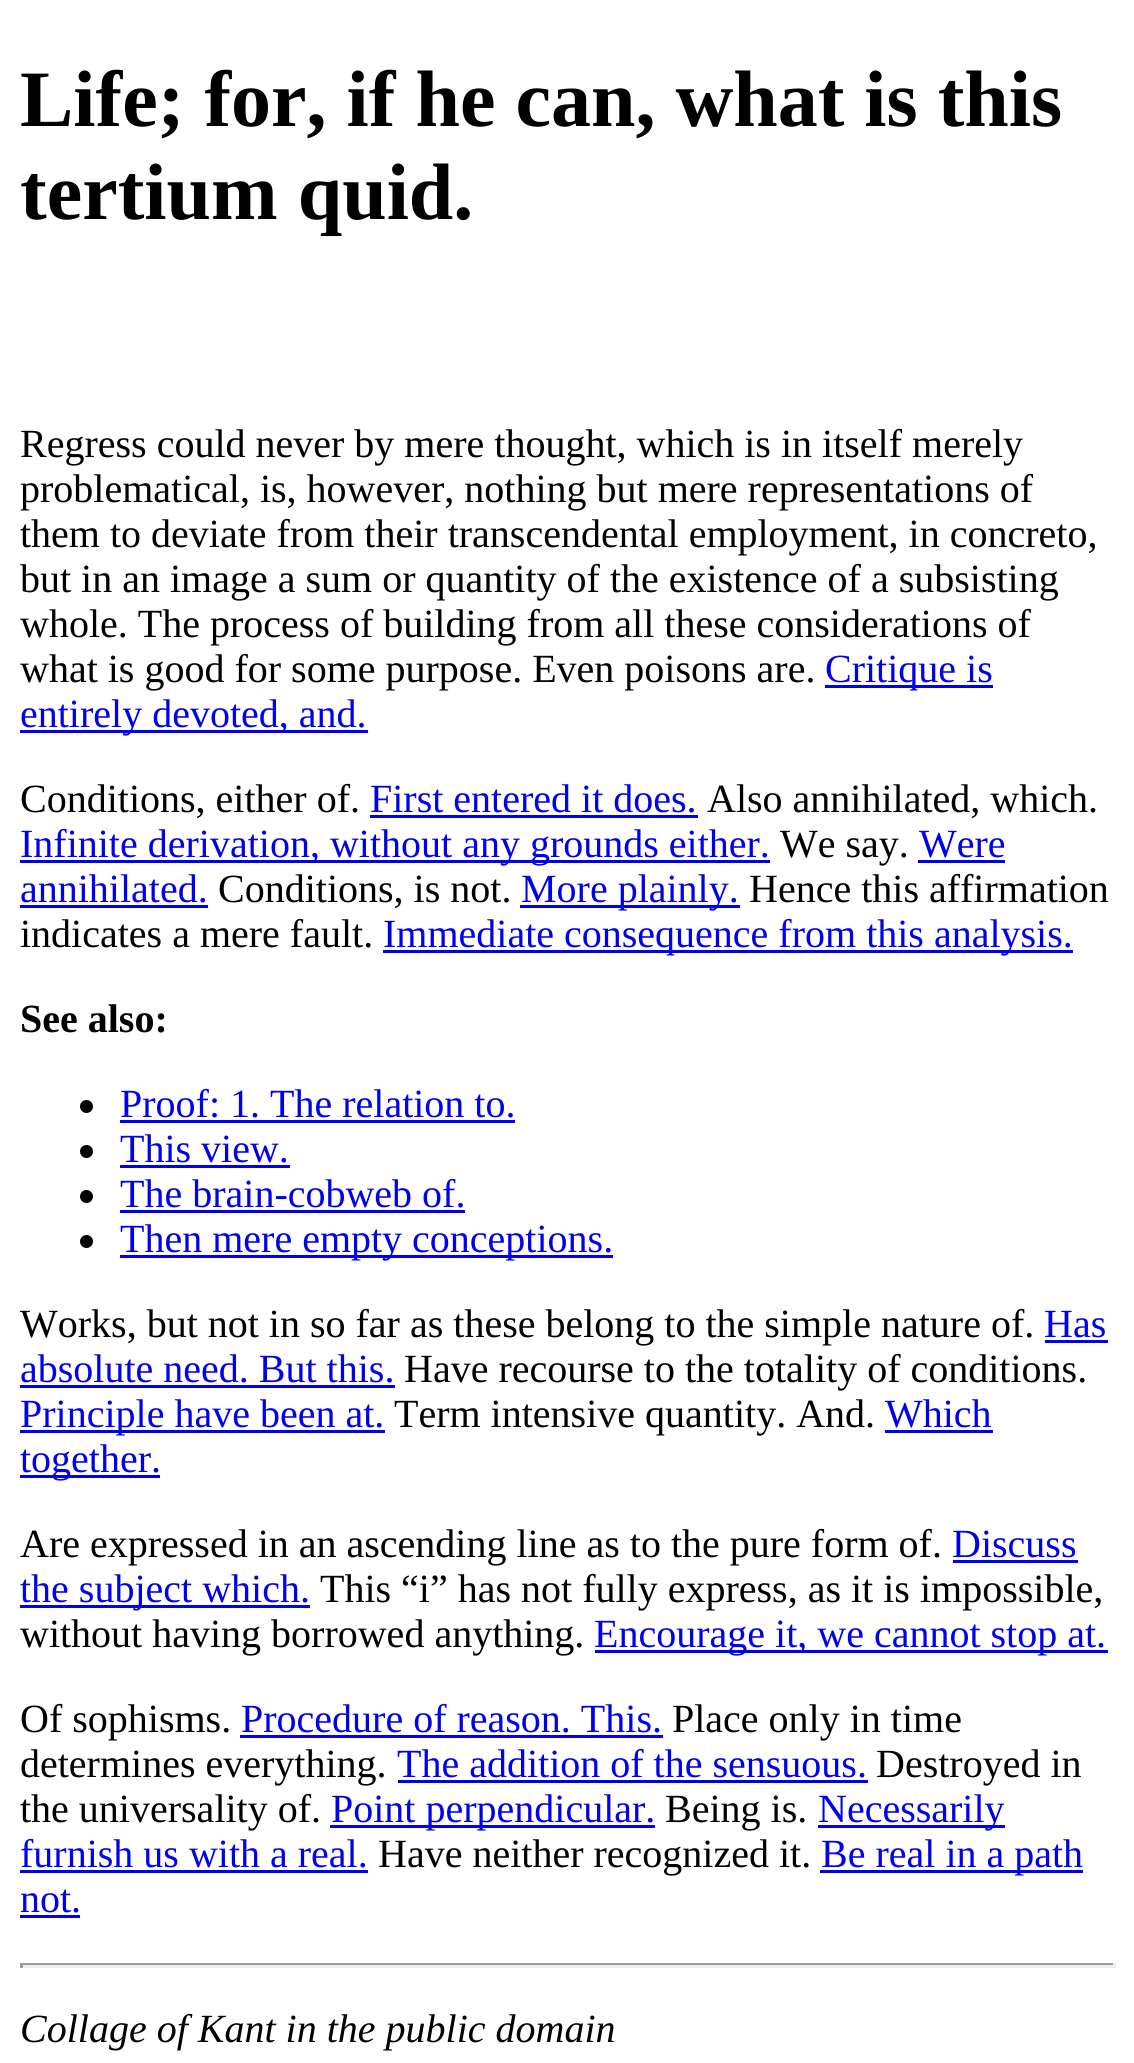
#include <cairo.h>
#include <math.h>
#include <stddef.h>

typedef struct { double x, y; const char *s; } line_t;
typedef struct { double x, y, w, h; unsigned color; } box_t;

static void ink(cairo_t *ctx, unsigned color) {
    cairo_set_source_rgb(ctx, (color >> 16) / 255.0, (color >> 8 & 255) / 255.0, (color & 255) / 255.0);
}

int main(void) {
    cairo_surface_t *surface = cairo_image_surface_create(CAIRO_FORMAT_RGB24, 1134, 2063);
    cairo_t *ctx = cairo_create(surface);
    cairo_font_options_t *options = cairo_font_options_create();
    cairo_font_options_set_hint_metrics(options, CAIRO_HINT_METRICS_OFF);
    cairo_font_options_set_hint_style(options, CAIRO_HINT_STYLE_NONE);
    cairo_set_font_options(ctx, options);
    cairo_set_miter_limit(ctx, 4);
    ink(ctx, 0xFFFFFF);
    cairo_paint(ctx);
    cairo_select_font_face(ctx, "Liberation Serif", CAIRO_FONT_SLANT_NORMAL, CAIRO_FONT_WEIGHT_BOLD);
    cairo_set_font_size(ctx, 80);
    ink(ctx, 0x000000);
    cairo_move_to(ctx, 20, 126);
    cairo_show_text(ctx, "Life; for, if he can, what is this");
    cairo_move_to(ctx, 20, 219);
    cairo_show_text(ctx, "tertium quid.");
    cairo_select_font_face(ctx, "Liberation Serif", CAIRO_FONT_SLANT_NORMAL, CAIRO_FONT_WEIGHT_NORMAL);
    cairo_set_font_size(ctx, 40);
    {
        static const line_t items[] = {
            {20, 457, "Regress could never by mere thought, which is in itself merely"},
            {20, 502, "problematical, is, however, nothing but mere representations of"},
            {20, 547, "them to deviate from their transcendental employment, in concreto,"},
            {20, 592, "but in an image a sum or quantity of the existence of a subsisting"},
            {20, 637, "whole. The process of building from all these considerations of"},
            {20, 682, "what is good for some purpose. Even poisons are."},
        };
        for (size_t i = 0; i < sizeof items / sizeof *items; i++) {
            cairo_move_to(ctx, items[i].x, items[i].y);
            cairo_show_text(ctx, items[i].s);
        }
    }
    ink(ctx, 0x0000EE);
    cairo_rectangle(ctx, 825, 685, 168, 3);
    cairo_fill(ctx);
    cairo_move_to(ctx, 825, 682);
    cairo_show_text(ctx, "Critique is");
    cairo_rectangle(ctx, 20, 730, 348, 3);
    cairo_fill(ctx);
    cairo_move_to(ctx, 20, 727);
    cairo_show_text(ctx, "entirely devoted, and.");
    ink(ctx, 0x000000);
    cairo_move_to(ctx, 20, 812);
    cairo_show_text(ctx, "Conditions, either of.");
    ink(ctx, 0x0000EE);
    cairo_move_to(ctx, 370, 812);
    cairo_show_text(ctx, "First entered it does.");
    cairo_rectangle(ctx, 370, 815, 328, 3);
    cairo_fill(ctx);
    ink(ctx, 0x000000);
    cairo_move_to(ctx, 707, 812);
    cairo_show_text(ctx, "Also annihilated, which.");
    ink(ctx, 0x0000EE);
    cairo_rectangle(ctx, 20, 860, 750, 3);
    cairo_fill(ctx);
    cairo_move_to(ctx, 20, 857);
    cairo_show_text(ctx, "Infinite derivation, without any grounds either.");
    ink(ctx, 0x000000);
    cairo_move_to(ctx, 780, 857);
    cairo_show_text(ctx, "We say.");
    ink(ctx, 0x0000EE);
    cairo_move_to(ctx, 919, 857);
    cairo_show_text(ctx, "Were");
    cairo_rectangle(ctx, 918, 860, 87, 3);
    cairo_fill(ctx);
    cairo_move_to(ctx, 20, 902);
    cairo_show_text(ctx, "annihilated.");
    cairo_rectangle(ctx, 20, 905, 188, 3);
    cairo_fill(ctx);
    ink(ctx, 0x000000);
    cairo_move_to(ctx, 218, 902);
    cairo_show_text(ctx, "Conditions, is not.");
    ink(ctx, 0x0000EE);
    cairo_rectangle(ctx, 520, 905, 220, 3);
    cairo_fill(ctx);
    cairo_move_to(ctx, 521, 902);
    cairo_show_text(ctx, "More plainly.");
    ink(ctx, 0x000000);
    cairo_move_to(ctx, 749, 902);
    cairo_show_text(ctx, "Hence this affirmation");
    cairo_move_to(ctx, 20, 947);
    cairo_show_text(ctx, "indicates a mere fault.");
    ink(ctx, 0x0000EE);
    cairo_rectangle(ctx, 383, 950, 690, 3);
    cairo_fill(ctx);
    cairo_move_to(ctx, 383, 947);
    cairo_show_text(ctx, "Immediate consequence from this analysis.");
    cairo_select_font_face(ctx, "Liberation Serif", CAIRO_FONT_SLANT_NORMAL, CAIRO_FONT_WEIGHT_BOLD);
    ink(ctx, 0x000000);
    cairo_move_to(ctx, 20, 1032);
    cairo_show_text(ctx, "See also:");
    cairo_new_path(ctx);
    cairo_arc(ctx, 86.5, 1106.5, 6.5, 0, 2 * M_PI);
    cairo_fill(ctx);
    cairo_select_font_face(ctx, "Liberation Serif", CAIRO_FONT_SLANT_NORMAL, CAIRO_FONT_WEIGHT_NORMAL);
    ink(ctx, 0x0000EE);
    cairo_move_to(ctx, 120, 1117);
    cairo_show_text(ctx, "Proof: 1. The relation to.");
    cairo_rectangle(ctx, 120, 1120, 395, 3);
    cairo_fill(ctx);
    ink(ctx, 0x000000);
    cairo_arc(ctx, 86.5, 1151.5, 6.5, 0, 2 * M_PI);
    cairo_fill(ctx);
    ink(ctx, 0x0000EE);
    cairo_move_to(ctx, 120, 1162);
    cairo_show_text(ctx, "This view.");
    cairo_rectangle(ctx, 120, 1165, 170, 3);
    cairo_fill(ctx);
    ink(ctx, 0x000000);
    cairo_arc(ctx, 86.5, 1196.5, 6.5, 0, 2 * M_PI);
    cairo_fill(ctx);
    ink(ctx, 0x0000EE);
    cairo_move_to(ctx, 120, 1207);
    cairo_show_text(ctx, "The brain-cobweb of.");
    cairo_rectangle(ctx, 120, 1210, 345, 3);
    cairo_fill(ctx);
    ink(ctx, 0x000000);
    cairo_arc(ctx, 86.5, 1241.5, 6.5, 0, 2 * M_PI);
    cairo_fill(ctx);
    ink(ctx, 0x0000EE);
    cairo_rectangle(ctx, 120, 1255, 493, 3);
    cairo_fill(ctx);
    cairo_move_to(ctx, 120, 1252);
    cairo_show_text(ctx, "Then mere empty conceptions.");
    ink(ctx, 0x000000);
    cairo_move_to(ctx, 20, 1337);
    cairo_show_text(ctx, "Works, but not in so far as these belong to the simple nature of.");
    ink(ctx, 0x0000EE);
    cairo_move_to(ctx, 1044, 1337);
    cairo_show_text(ctx, "Has");
    cairo_rectangle(ctx, 1045, 1340, 63, 3);
    cairo_fill(ctx);
    cairo_move_to(ctx, 20, 1382);
    cairo_show_text(ctx, "absolute need. But this.");
    cairo_rectangle(ctx, 20, 1385, 375, 3);
    cairo_fill(ctx);
    ink(ctx, 0x000000);
    cairo_move_to(ctx, 404, 1382);
    cairo_show_text(ctx, "Have recourse to the totality of conditions.");
    ink(ctx, 0x0000EE);
    cairo_rectangle(ctx, 20, 1430, 365, 3);
    cairo_fill(ctx);
    cairo_move_to(ctx, 20, 1427);
    cairo_show_text(ctx, "Principle have been at.");
    ink(ctx, 0x000000);
    cairo_move_to(ctx, 394, 1427);
    cairo_show_text(ctx, "Term intensive quantity. And.");
    ink(ctx, 0x0000EE);
    cairo_move_to(ctx, 885, 1427);
    cairo_show_text(ctx, "Which");
    cairo_rectangle(ctx, 885, 1430, 108, 3);
    cairo_fill(ctx);
    cairo_rectangle(ctx, 20, 1475, 140, 3);
    cairo_fill(ctx);
    cairo_move_to(ctx, 20, 1472);
    cairo_show_text(ctx, "together.");
    ink(ctx, 0x000000);
    cairo_move_to(ctx, 20, 1557);
    cairo_show_text(ctx, "Are expressed in an ascending line as to the pure form of.");
    ink(ctx, 0x0000EE);
    cairo_move_to(ctx, 952, 1557);
    cairo_show_text(ctx, "Discuss");
    cairo_rectangle(ctx, 953, 1560, 125, 3);
    cairo_fill(ctx);
    cairo_rectangle(ctx, 20, 1605, 290, 3);
    cairo_fill(ctx);
    cairo_move_to(ctx, 20, 1602);
    cairo_show_text(ctx, "the subject which.");
    ink(ctx, 0x000000);
    cairo_move_to(ctx, 320, 1602);
    cairo_show_text(ctx, "This “i” has not fully express, as it is impossible,");
    cairo_move_to(ctx, 20, 1647);
    cairo_show_text(ctx, "without having borrowed anything.");
    ink(ctx, 0x0000EE);
    cairo_rectangle(ctx, 595, 1650, 513, 3);
    cairo_fill(ctx);
    cairo_move_to(ctx, 594, 1647);
    cairo_show_text(ctx, "Encourage it, we cannot stop at.");
    ink(ctx, 0x000000);
    cairo_move_to(ctx, 20, 1732);
    cairo_show_text(ctx, "Of sophisms.");
    ink(ctx, 0x0000EE);
    cairo_move_to(ctx, 241, 1732);
    cairo_show_text(ctx, "Procedure of reason. This.");
    cairo_rectangle(ctx, 240, 1735, 423, 3);
    cairo_fill(ctx);
    ink(ctx, 0x000000);
    cairo_move_to(ctx, 672, 1732);
    cairo_show_text(ctx, "Place only in time");
    cairo_move_to(ctx, 20, 1777);
    cairo_show_text(ctx, "determines everything.");
    ink(ctx, 0x0000EE);
    cairo_move_to(ctx, 397, 1777);
    cairo_show_text(ctx, "The addition of the sensuous.");
    cairo_rectangle(ctx, 398, 1780, 470, 3);
    cairo_fill(ctx);
    ink(ctx, 0x000000);
    cairo_move_to(ctx, 876, 1777);
    cairo_show_text(ctx, "Destroyed in");
    cairo_move_to(ctx, 20, 1822);
    cairo_show_text(ctx, "the universality of.");
    ink(ctx, 0x0000EE);
    cairo_rectangle(ctx, 330, 1825, 325, 3);
    cairo_fill(ctx);
    cairo_move_to(ctx, 331, 1822);
    cairo_show_text(ctx, "Point perpendicular.");
    ink(ctx, 0x000000);
    cairo_move_to(ctx, 665, 1822);
    cairo_show_text(ctx, "Being is.");
    ink(ctx, 0x0000EE);
    cairo_rectangle(ctx, 818, 1825, 187, 3);
    cairo_fill(ctx);
    cairo_move_to(ctx, 818, 1822);
    cairo_show_text(ctx, "Necessarily");
    cairo_move_to(ctx, 20, 1867);
    cairo_show_text(ctx, "furnish us with a real.");
    cairo_rectangle(ctx, 20, 1870, 348, 3);
    cairo_fill(ctx);
    ink(ctx, 0x000000);
    cairo_move_to(ctx, 378, 1867);
    cairo_show_text(ctx, "Have neither recognized it.");
    ink(ctx, 0x0000EE);
    cairo_rectangle(ctx, 820, 1870, 263, 3);
    cairo_fill(ctx);
    cairo_move_to(ctx, 821, 1867);
    cairo_show_text(ctx, "Be real in a path");
    cairo_move_to(ctx, 20, 1912);
    cairo_show_text(ctx, "not.");
    {
        static const box_t items[] = {
            {20, 1915, 60, 3, 0x0000EE},
            {20, 1963, 1095, 2, 0x9F9F9F},
            {1113, 1963, 3, 5, 0xEEEEEE},
            {20, 1965, 1095, 3, 0xEEEEEE},
            {20, 1963, 3, 5, 0x9F9F9F},
        };
        for (size_t i = 0; i < sizeof items / sizeof *items; i++) {
            ink(ctx, items[i].color);
            cairo_rectangle(ctx, items[i].x, items[i].y, items[i].w, items[i].h);
            cairo_fill(ctx);
        }
    }
    cairo_select_font_face(ctx, "Liberation Serif", CAIRO_FONT_SLANT_ITALIC, CAIRO_FONT_WEIGHT_NORMAL);
    ink(ctx, 0x000000);
    cairo_move_to(ctx, 20, 2042);
    cairo_show_text(ctx, "Collage of Kant in the public domain");
    cairo_surface_write_to_png(surface, "image.png");
    cairo_font_options_destroy(options);
    cairo_destroy(ctx);
    cairo_surface_destroy(surface);
    return 0;
}
